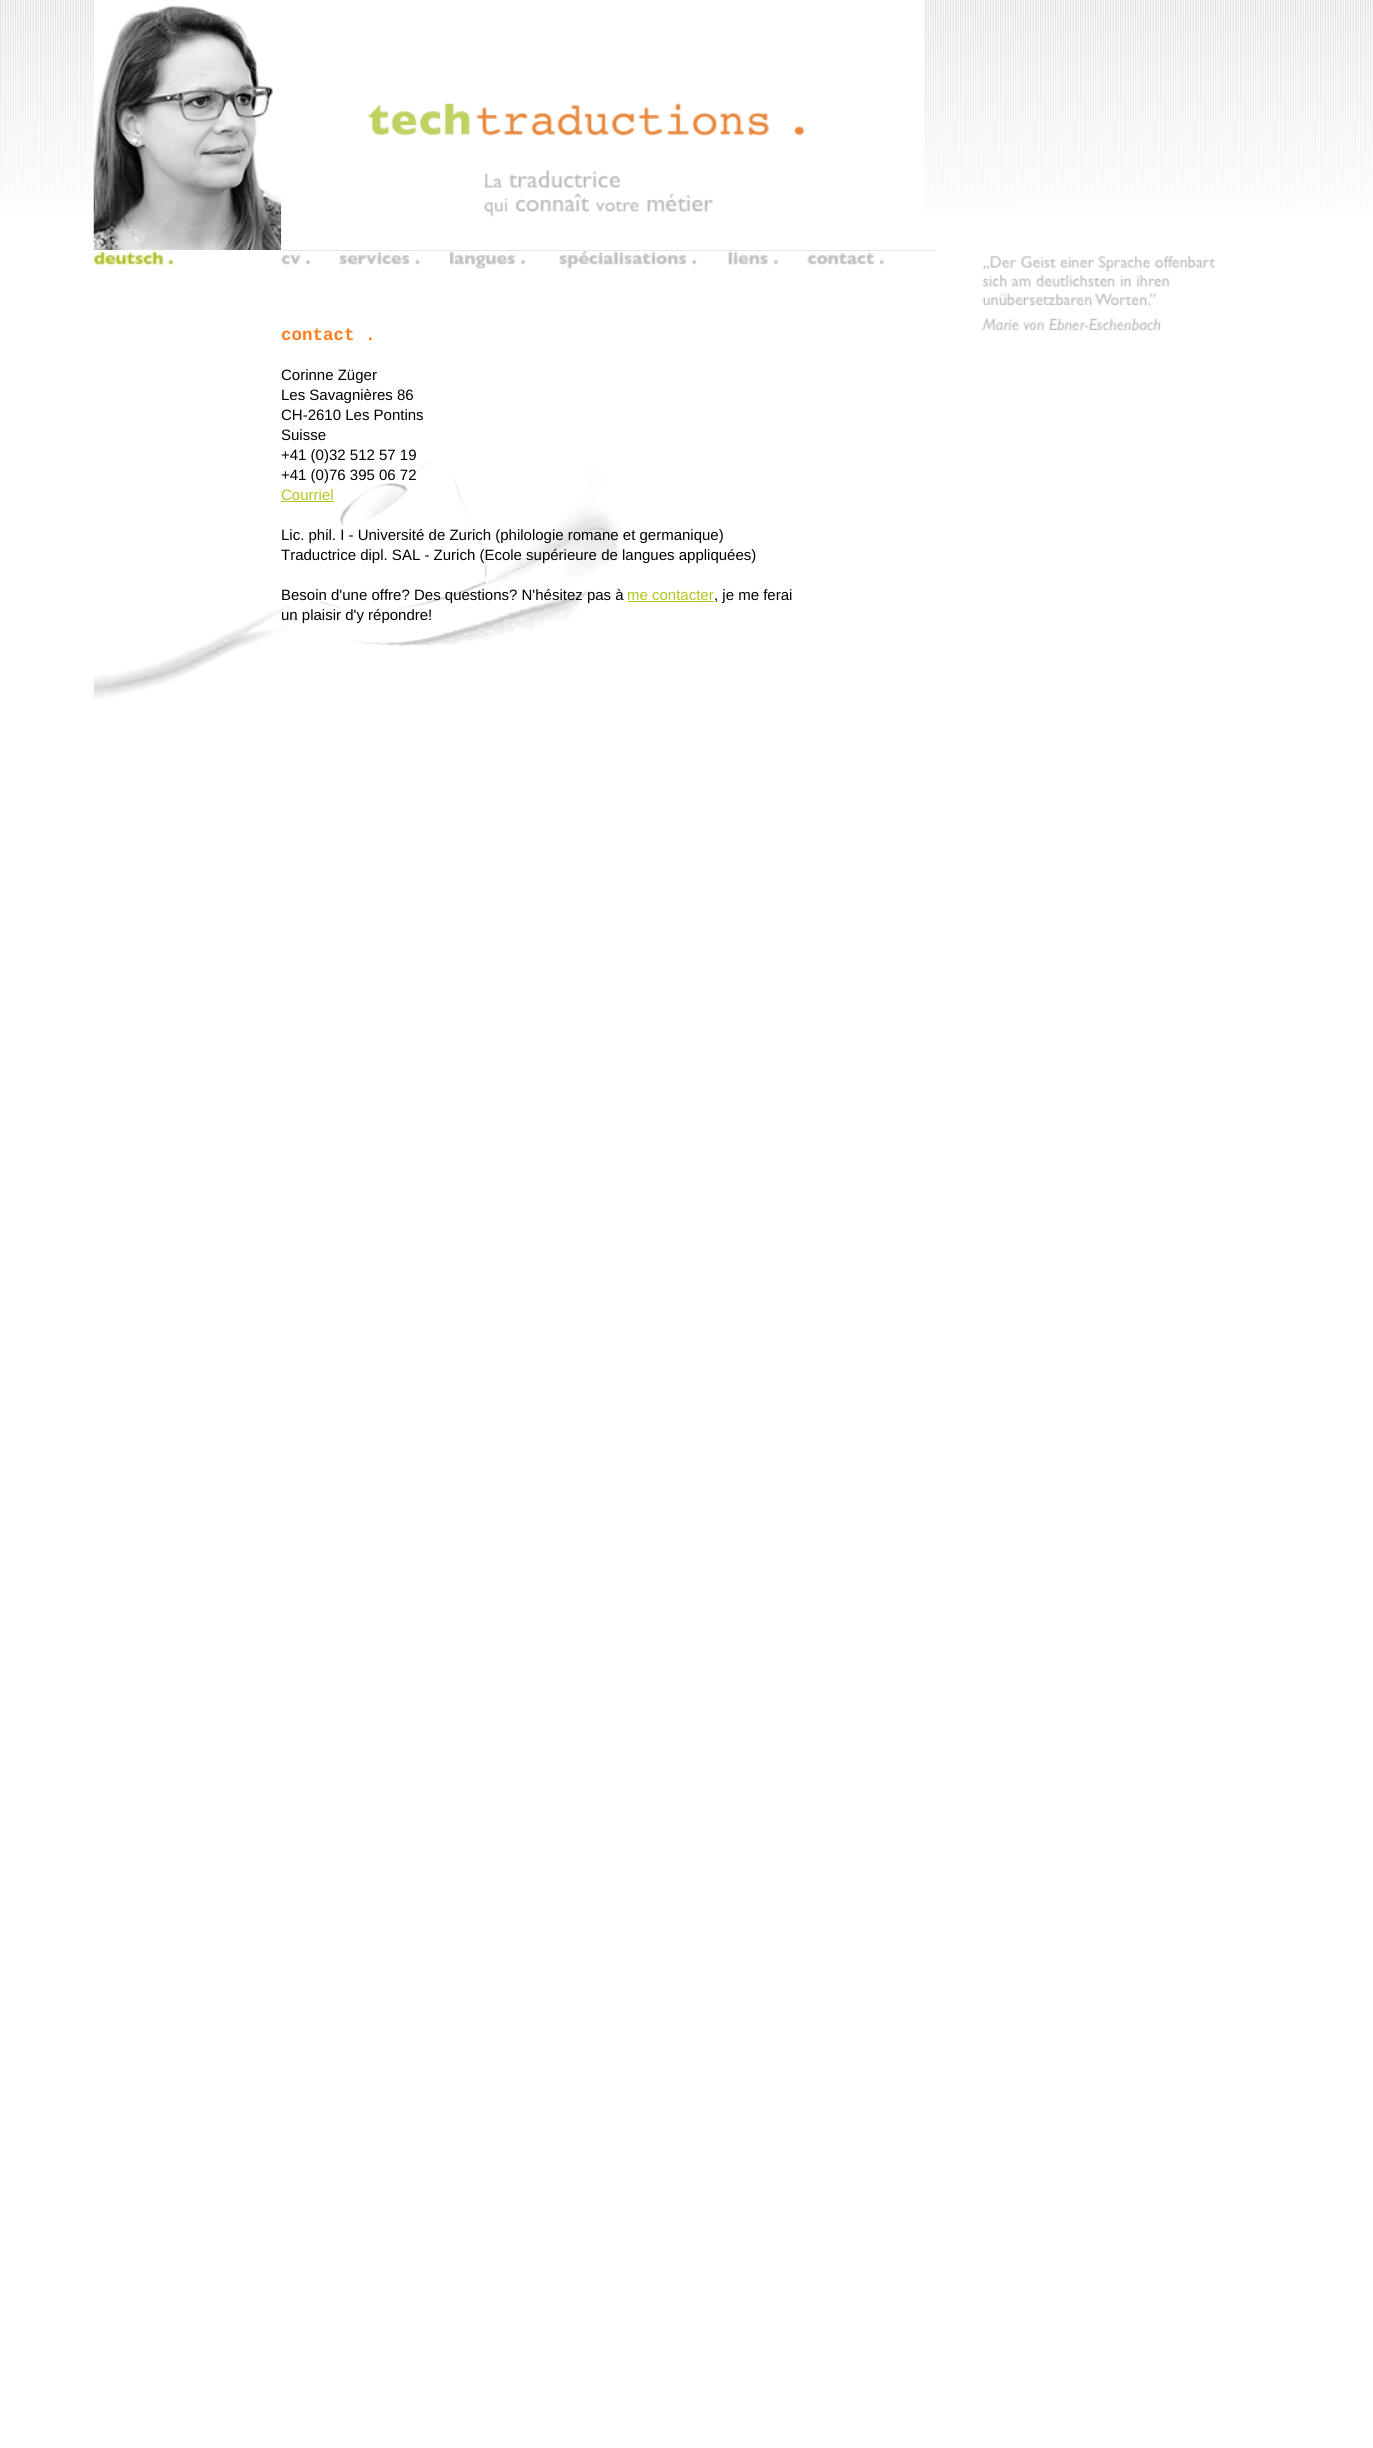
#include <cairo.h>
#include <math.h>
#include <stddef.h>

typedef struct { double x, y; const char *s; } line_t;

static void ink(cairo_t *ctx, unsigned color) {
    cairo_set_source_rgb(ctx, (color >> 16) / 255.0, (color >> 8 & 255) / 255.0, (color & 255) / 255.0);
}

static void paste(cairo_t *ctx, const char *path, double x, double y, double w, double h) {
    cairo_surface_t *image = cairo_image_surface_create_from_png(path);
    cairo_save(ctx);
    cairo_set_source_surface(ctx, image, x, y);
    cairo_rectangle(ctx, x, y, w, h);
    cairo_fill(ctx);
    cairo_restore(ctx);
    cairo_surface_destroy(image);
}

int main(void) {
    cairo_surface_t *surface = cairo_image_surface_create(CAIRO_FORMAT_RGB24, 1373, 2448);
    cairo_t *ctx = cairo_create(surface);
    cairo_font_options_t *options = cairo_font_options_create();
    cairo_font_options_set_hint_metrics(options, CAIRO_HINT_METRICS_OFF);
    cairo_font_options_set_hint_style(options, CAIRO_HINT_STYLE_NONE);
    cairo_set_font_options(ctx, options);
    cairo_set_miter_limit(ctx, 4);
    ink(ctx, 0xFFFFFF);
    cairo_paint(ctx);
    paste(ctx, "media/1.png", 0, 0, 1373, 212);
    paste(ctx, "media/2.png", 93, 0, 189, 250);
    paste(ctx, "media/3.png", 281, 0, 643, 250);
    paste(ctx, "media/4.png", 483, 170, 231, 47);
    ink(ctx, 0xE5E5E5);
    cairo_rectangle(ctx, 281, 250, 653, 1);
    cairo_fill(ctx);
    paste(ctx, "media/5.png", 93, 251, 82, 16);
    paste(ctx, "media/6.png", 281, 255, 30, 10);
    paste(ctx, "media/7.png", 339, 251, 81, 14);
    paste(ctx, "media/8.png", 450, 251, 76, 18);
    paste(ctx, "media/9.png", 559, 251, 138, 18);
    paste(ctx, "media/10.png", 728, 251, 50, 14);
    paste(ctx, "media/11.png", 807, 252, 77, 13);
    paste(ctx, "media/12.png", 982, 256, 233, 75);
    cairo_select_font_face(ctx, "Liberation Mono", CAIRO_FONT_SLANT_NORMAL, CAIRO_FONT_WEIGHT_BOLD);
    cairo_set_font_size(ctx, 17.5);
    ink(ctx, 0xFE7C19);
    cairo_move_to(ctx, 281, 340);
    cairo_show_text(ctx, "contact .");
    cairo_select_font_face(ctx, "Liberation Sans", CAIRO_FONT_SLANT_NORMAL, CAIRO_FONT_WEIGHT_NORMAL);
    cairo_set_font_size(ctx, 15);
    ink(ctx, 0x000000);
    {
        static const line_t items[] = {
            {281, 380, "Corinne Züger"},
            {281, 400, "Les Savagnières 86"},
            {281, 420, "CH-2610 Les Pontins"},
            {281, 440, "Suisse"},
        };
        for (size_t i = 0; i < sizeof items / sizeof *items; i++) {
            cairo_move_to(ctx, items[i].x, items[i].y);
            cairo_show_text(ctx, items[i].s);
        }
    }
    paste(ctx, "media/13.png", 93, 460, 527, 239);
    cairo_move_to(ctx, 281, 460);
    cairo_show_text(ctx, "+41 (0)32 512 57 19");
    cairo_move_to(ctx, 281, 480);
    cairo_show_text(ctx, "+41 (0)76 395 06 72");
    ink(ctx, 0xB2C51D);
    cairo_move_to(ctx, 281, 500);
    cairo_show_text(ctx, "Courriel");
    cairo_rectangle(ctx, 281, 501, 53, 1);
    cairo_fill(ctx);
    ink(ctx, 0x000000);
    {
        static const line_t items[] = {
            {281, 540, "Lic. phil. I - Université de Zurich (philologie romane et germanique)"},
            {281, 560, "Traductrice dipl. SAL - Zurich (Ecole supérieure de langues appliquées)"},
            {281, 600, "Besoin d'une offre? Des questions? N'hésitez pas à"},
        };
        for (size_t i = 0; i < sizeof items / sizeof *items; i++) {
            cairo_move_to(ctx, items[i].x, items[i].y);
            cairo_show_text(ctx, items[i].s);
        }
    }
    ink(ctx, 0xB2C51D);
    cairo_move_to(ctx, 627, 600);
    cairo_show_text(ctx, "me contacter");
    cairo_rectangle(ctx, 628, 601, 86, 1);
    cairo_fill(ctx);
    ink(ctx, 0x000000);
    cairo_move_to(ctx, 714, 600);
    cairo_show_text(ctx, ", je me ferai");
    cairo_move_to(ctx, 281, 620);
    cairo_show_text(ctx, "un plaisir d'y répondre!");
    cairo_surface_write_to_png(surface, "image.png");
    cairo_font_options_destroy(options);
    cairo_destroy(ctx);
    cairo_surface_destroy(surface);
    return 0;
}
